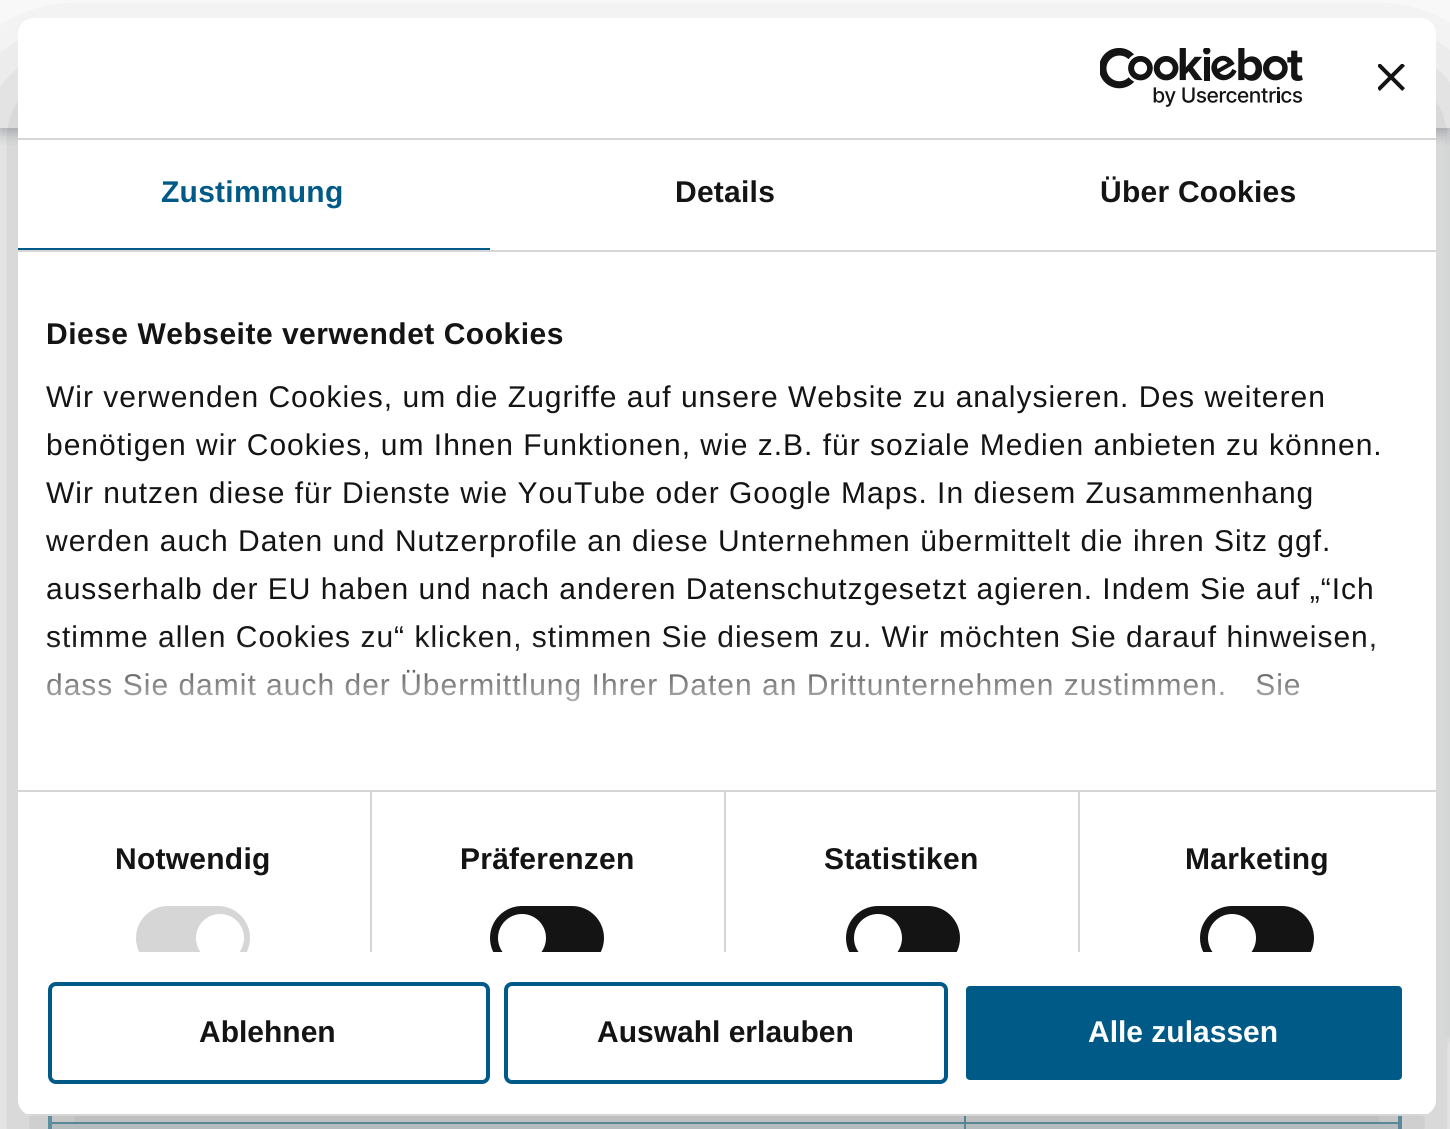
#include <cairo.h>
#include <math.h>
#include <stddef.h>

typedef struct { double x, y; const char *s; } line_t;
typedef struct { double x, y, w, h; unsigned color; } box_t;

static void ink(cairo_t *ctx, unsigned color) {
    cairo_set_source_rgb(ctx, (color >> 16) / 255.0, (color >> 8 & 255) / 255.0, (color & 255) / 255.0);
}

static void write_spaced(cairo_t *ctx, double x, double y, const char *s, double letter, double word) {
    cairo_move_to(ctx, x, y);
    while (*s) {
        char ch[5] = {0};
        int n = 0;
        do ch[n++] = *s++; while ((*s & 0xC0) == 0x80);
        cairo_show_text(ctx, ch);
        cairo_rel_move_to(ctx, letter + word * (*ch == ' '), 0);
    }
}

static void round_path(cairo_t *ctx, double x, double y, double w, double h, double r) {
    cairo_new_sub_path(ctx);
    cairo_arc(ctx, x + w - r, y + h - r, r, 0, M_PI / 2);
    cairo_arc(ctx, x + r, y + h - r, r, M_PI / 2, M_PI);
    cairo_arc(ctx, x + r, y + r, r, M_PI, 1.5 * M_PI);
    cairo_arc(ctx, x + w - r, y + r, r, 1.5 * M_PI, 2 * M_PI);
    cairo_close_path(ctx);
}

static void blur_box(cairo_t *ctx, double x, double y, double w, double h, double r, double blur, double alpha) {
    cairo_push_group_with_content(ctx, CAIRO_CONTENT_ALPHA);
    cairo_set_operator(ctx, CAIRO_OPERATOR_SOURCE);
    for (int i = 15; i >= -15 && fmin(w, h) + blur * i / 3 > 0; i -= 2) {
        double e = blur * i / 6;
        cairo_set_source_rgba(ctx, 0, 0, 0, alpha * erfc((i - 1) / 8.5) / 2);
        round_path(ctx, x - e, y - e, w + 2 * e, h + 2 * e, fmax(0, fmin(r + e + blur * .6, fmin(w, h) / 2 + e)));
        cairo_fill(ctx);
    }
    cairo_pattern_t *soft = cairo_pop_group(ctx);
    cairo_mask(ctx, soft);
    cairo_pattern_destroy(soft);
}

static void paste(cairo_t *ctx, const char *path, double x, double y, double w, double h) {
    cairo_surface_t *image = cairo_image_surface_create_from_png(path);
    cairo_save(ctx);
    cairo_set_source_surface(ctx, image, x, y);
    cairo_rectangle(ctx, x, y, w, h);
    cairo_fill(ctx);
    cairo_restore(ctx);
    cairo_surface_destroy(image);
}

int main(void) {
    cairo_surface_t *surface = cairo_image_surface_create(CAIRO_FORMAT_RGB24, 1450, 1129);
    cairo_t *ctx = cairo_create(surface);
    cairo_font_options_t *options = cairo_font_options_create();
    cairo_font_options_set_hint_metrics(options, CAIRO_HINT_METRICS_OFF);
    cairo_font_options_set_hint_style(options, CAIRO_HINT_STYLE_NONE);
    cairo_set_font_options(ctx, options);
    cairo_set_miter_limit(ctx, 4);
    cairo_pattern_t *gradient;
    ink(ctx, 0xFFFFFF);
    cairo_paint(ctx);
    cairo_save(ctx);
    cairo_rectangle(ctx, 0, 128, 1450, 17);
    cairo_clip(ctx);
    ink(ctx, 0x3F4C58);
    blur_box(ctx, 0, 4, 1450, 128, 0, 8, 0.4);
    cairo_restore(ctx);
    ink(ctx, 0x3F4C58);
    blur_box(ctx, 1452, 132, 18, 910, 8, 4, 0.4);
    {
        static const box_t items[] = {
            {50, 1124, 1350, 5, 0xE9F2F5},
            {964, 1122, 2, 7, 0x73B1C3},
            {964, 1122, 438, 2, 0x73B1C3},
            {1398, 1116, 4, 13, 0x73B1C3},
            {964, 1116, 2, 8, 0x73B1C3},
            {50, 1122, 916, 2, 0x73B1C3},
            {48, 1116, 4, 13, 0x73B1C3},
        };
        for (size_t i = 0; i < sizeof items / sizeof *items; i++) {
            ink(ctx, items[i].color);
            cairo_rectangle(ctx, items[i].x, items[i].y, items[i].w, items[i].h);
            cairo_fill(ctx);
        }
    }
    ink(ctx, 0x000000);
    blur_box(ctx, 18, 82, 1418, 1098, 16, 68, 0.3);
    ink(ctx, 0xFFFFFF);
    round_path(ctx, 18, 18, 1418, 1098, 16);
    cairo_fill(ctx);
    ink(ctx, 0xD6D6D6);
    cairo_rectangle(ctx, 18, 138, 1418, 2);
    cairo_fill(ctx);
    paste(ctx, "media/1.png", 1100, 48, 203, 59);
    paste(ctx, "media/2.png", 1378, 64, 27, 27);
    cairo_rectangle(ctx, 18, 250, 1418, 2);
    cairo_fill(ctx);
    ink(ctx, 0x005A87);
    cairo_rectangle(ctx, 18, 248, 472, 2);
    cairo_fill(ctx);
    cairo_select_font_face(ctx, "Liberation Sans", CAIRO_FONT_SLANT_NORMAL, CAIRO_FONT_WEIGHT_BOLD);
    cairo_set_font_size(ctx, 30);
    write_spaced(ctx, 161, 202, "Zustimmung", 0.25, 0);
    ink(ctx, 0x141414);
    write_spaced(ctx, 675, 202, "Details", 0.25, 0);
    write_spaced(ctx, 1100, 202, "Über Cookies", 0.25, 0);
    ink(ctx, 0xD6D6D6);
    cairo_rectangle(ctx, 18, 790, 1418, 2);
    cairo_fill(ctx);
    ink(ctx, 0x141414);
    write_spaced(ctx, 46, 344, "Diese Webseite verwendet Cookies", 0.5, 0);
    cairo_select_font_face(ctx, "Liberation Sans", CAIRO_FONT_SLANT_NORMAL, CAIRO_FONT_WEIGHT_NORMAL);
    {
        static const line_t items[] = {
            {46, 407, "Wir verwenden Cookies, um die Zugriffe auf unsere Website zu analysieren. Des weiteren"},
            {46, 455, "benötigen wir Cookies, um Ihnen Funktionen, wie z.B. für soziale Medien anbieten zu können."},
            {46, 503, "Wir nutzen diese für Dienste wie YouTube oder Google Maps. In diesem Zusammenhang"},
            {46, 551, "werden auch Daten und Nutzerprofile an diese Unternehmen übermittelt die ihren Sitz ggf."},
            {46, 599, "ausserhalb der EU haben und nach anderen Datenschutzgesetzt agieren. Indem Sie auf „“Ich"},
            {46, 647, "stimme allen Cookies zu“ klicken, stimmen Sie diesem zu. Wir möchten Sie darauf hinweisen,"},
            {46, 695, "dass Sie damit auch der Übermittlung Ihrer Daten an Drittunternehmen zustimmen.   Sie"},
        };
        for (size_t i = 0; i < sizeof items / sizeof *items; i++) {
            write_spaced(ctx, items[i].x, items[i].y, items[i].s, 1, 0);
        }
    }
    gradient = cairo_pattern_create_linear(713, 789, 713, 639);
    cairo_pattern_add_color_stop_rgba(gradient, 0, 1, 1, 1, 1);
    cairo_pattern_add_color_stop_rgba(gradient, 0.5, 1, 1, 1, 0.8);
    cairo_pattern_add_color_stop_rgba(gradient, 1, 1, 1, 1, 0);
    cairo_set_source(ctx, gradient);
    cairo_pattern_destroy(gradient);
    cairo_rectangle(ctx, 47, 641, 1328, 61);
    cairo_fill(ctx);
    ink(ctx, 0xD6D6D6);
    cairo_rectangle(ctx, 370, 792, 2, 160);
    cairo_fill(ctx);
    cairo_select_font_face(ctx, "Liberation Sans", CAIRO_FONT_SLANT_NORMAL, CAIRO_FONT_WEIGHT_BOLD);
    ink(ctx, 0x141414);
    write_spaced(ctx, 115, 869, "Notwendig", 0.25, 0);
    cairo_save(ctx);
    cairo_rectangle(ctx, 18, 252, 1418, 700);
    cairo_clip(ctx);
    ink(ctx, 0xD6D6D6);
    round_path(ctx, 136, 906, 114, 64, 32);
    cairo_fill(ctx);
    ink(ctx, 0xFFFFFF);
    cairo_arc(ctx, 220, 938, 24, 0, 2 * M_PI);
    cairo_fill(ctx);
    cairo_restore(ctx);
    ink(ctx, 0xD6D6D6);
    cairo_rectangle(ctx, 724, 792, 2, 160);
    cairo_fill(ctx);
    ink(ctx, 0x141414);
    write_spaced(ctx, 460, 869, "Präferenzen", 0.25, 0);
    cairo_save(ctx);
    cairo_rectangle(ctx, 18, 252, 1418, 700);
    cairo_clip(ctx);
    round_path(ctx, 490, 906, 114, 64, 32);
    cairo_fill(ctx);
    ink(ctx, 0xFFFFFF);
    cairo_arc(ctx, 522, 938, 24, 0, 2 * M_PI);
    cairo_fill(ctx);
    cairo_restore(ctx);
    ink(ctx, 0xD6D6D6);
    cairo_rectangle(ctx, 1078, 792, 2, 160);
    cairo_fill(ctx);
    ink(ctx, 0x141414);
    write_spaced(ctx, 824, 869, "Statistiken", 0.25, 0);
    cairo_save(ctx);
    cairo_rectangle(ctx, 18, 252, 1418, 700);
    cairo_clip(ctx);
    round_path(ctx, 846, 906, 114, 64, 32);
    cairo_fill(ctx);
    ink(ctx, 0xFFFFFF);
    cairo_arc(ctx, 878, 938, 24, 0, 2 * M_PI);
    cairo_fill(ctx);
    cairo_restore(ctx);
    write_spaced(ctx, 1185, 869, "Marketing", 0.25, 0);
    cairo_save(ctx);
    cairo_rectangle(ctx, 18, 252, 1418, 700);
    cairo_clip(ctx);
    round_path(ctx, 1200, 906, 114, 64, 32);
    cairo_fill(ctx);
    ink(ctx, 0xFFFFFF);
    cairo_arc(ctx, 1232, 938, 24, 0, 2 * M_PI);
    cairo_fill(ctx);
    cairo_restore(ctx);
    cairo_save(ctx);
    round_path(ctx, 18, 18, 1418, 1098, 16);
    cairo_clip(ctx);
    ink(ctx, 0xD6D6D6);
    cairo_rectangle(ctx, 18, 1114, 1418, 2);
    cairo_fill(ctx);
    cairo_restore(ctx);
    round_path(ctx, 50, 984, 438, 98, 6);
    ink(ctx, 0x005A87);
    cairo_set_line_width(ctx, 4);
    cairo_stroke(ctx);
    ink(ctx, 0x141414);
    cairo_move_to(ctx, 199, 1042);
    cairo_show_text(ctx, "Ablehnen");
    round_path(ctx, 506, 984, 440, 98, 6);
    ink(ctx, 0x005A87);
    cairo_stroke(ctx);
    ink(ctx, 0x141414);
    cairo_move_to(ctx, 597, 1042);
    cairo_show_text(ctx, "Auswahl erlauben");
    ink(ctx, 0x005A87);
    round_path(ctx, 964, 984, 440, 98, 6);
    cairo_fill_preserve(ctx);
    ink(ctx, 0xFFFFFF);
    cairo_stroke(ctx);
    cairo_move_to(ctx, 1088, 1042);
    cairo_show_text(ctx, "Alle zulassen");
    cairo_surface_write_to_png(surface, "image.png");
    cairo_font_options_destroy(options);
    cairo_destroy(ctx);
    cairo_surface_destroy(surface);
    return 0;
}
